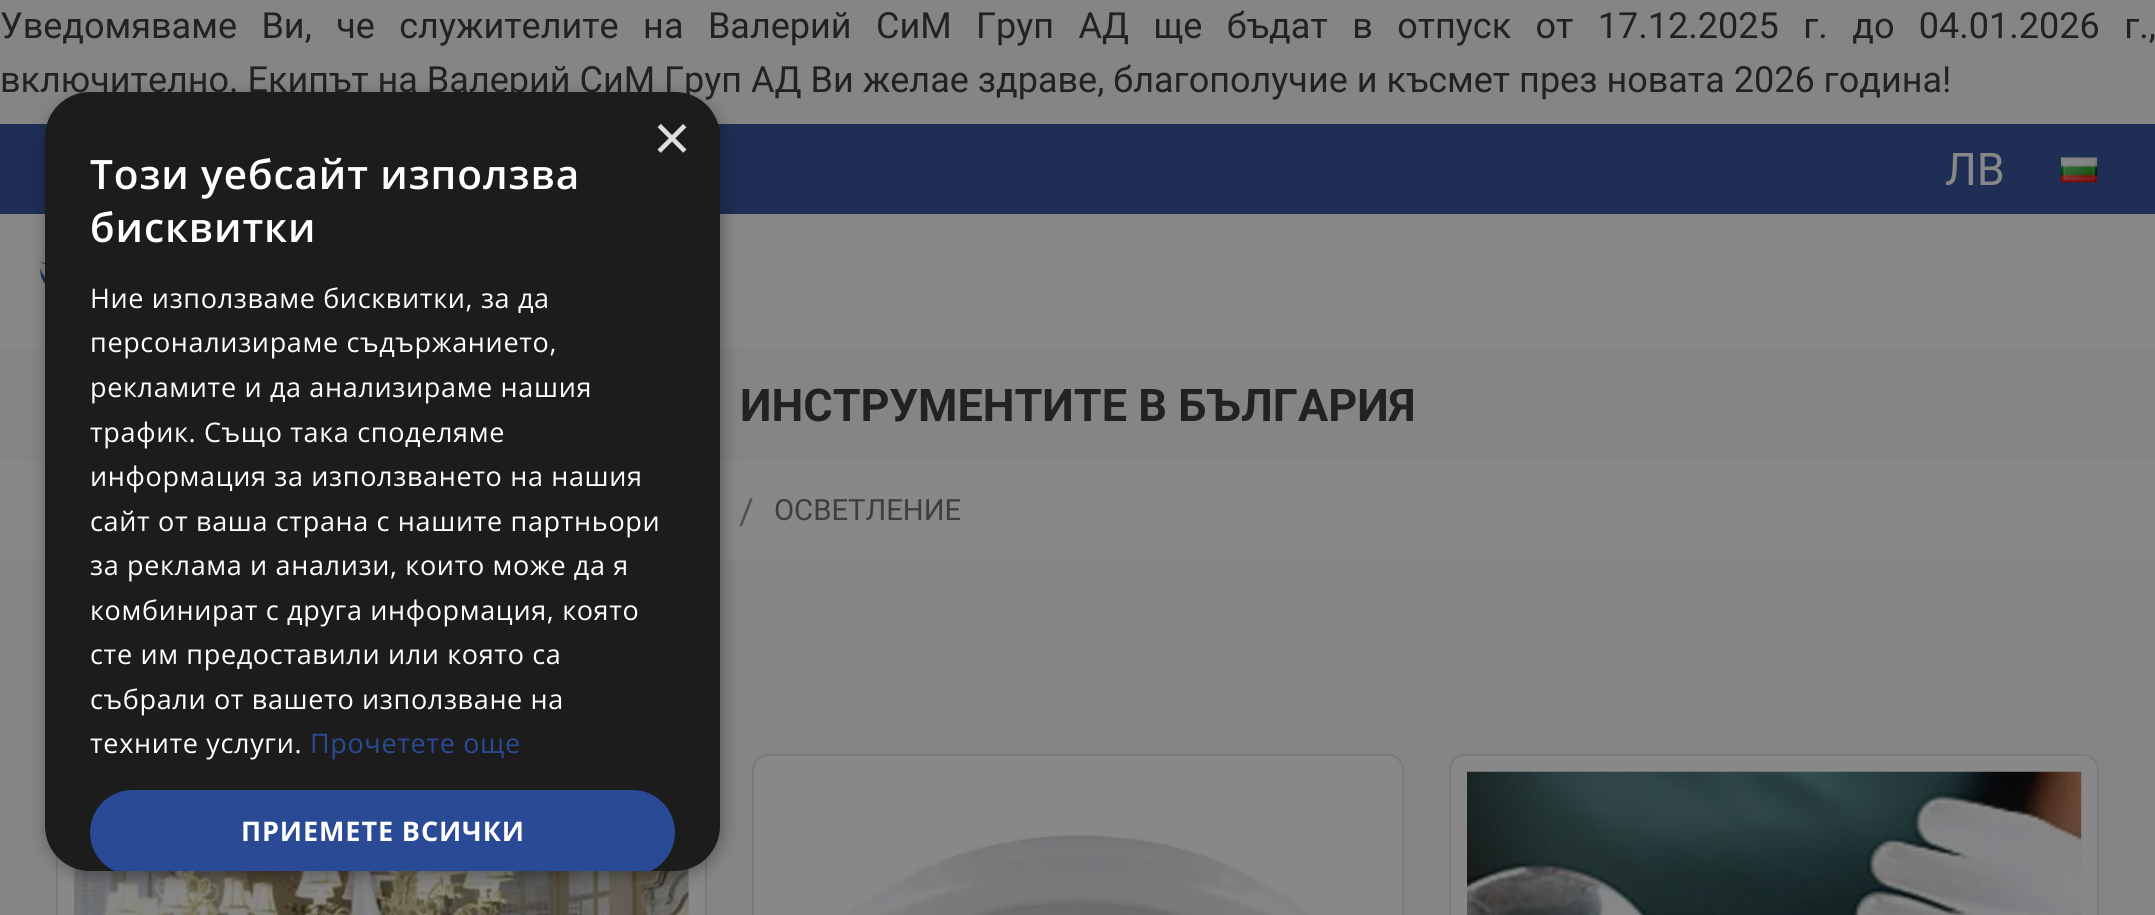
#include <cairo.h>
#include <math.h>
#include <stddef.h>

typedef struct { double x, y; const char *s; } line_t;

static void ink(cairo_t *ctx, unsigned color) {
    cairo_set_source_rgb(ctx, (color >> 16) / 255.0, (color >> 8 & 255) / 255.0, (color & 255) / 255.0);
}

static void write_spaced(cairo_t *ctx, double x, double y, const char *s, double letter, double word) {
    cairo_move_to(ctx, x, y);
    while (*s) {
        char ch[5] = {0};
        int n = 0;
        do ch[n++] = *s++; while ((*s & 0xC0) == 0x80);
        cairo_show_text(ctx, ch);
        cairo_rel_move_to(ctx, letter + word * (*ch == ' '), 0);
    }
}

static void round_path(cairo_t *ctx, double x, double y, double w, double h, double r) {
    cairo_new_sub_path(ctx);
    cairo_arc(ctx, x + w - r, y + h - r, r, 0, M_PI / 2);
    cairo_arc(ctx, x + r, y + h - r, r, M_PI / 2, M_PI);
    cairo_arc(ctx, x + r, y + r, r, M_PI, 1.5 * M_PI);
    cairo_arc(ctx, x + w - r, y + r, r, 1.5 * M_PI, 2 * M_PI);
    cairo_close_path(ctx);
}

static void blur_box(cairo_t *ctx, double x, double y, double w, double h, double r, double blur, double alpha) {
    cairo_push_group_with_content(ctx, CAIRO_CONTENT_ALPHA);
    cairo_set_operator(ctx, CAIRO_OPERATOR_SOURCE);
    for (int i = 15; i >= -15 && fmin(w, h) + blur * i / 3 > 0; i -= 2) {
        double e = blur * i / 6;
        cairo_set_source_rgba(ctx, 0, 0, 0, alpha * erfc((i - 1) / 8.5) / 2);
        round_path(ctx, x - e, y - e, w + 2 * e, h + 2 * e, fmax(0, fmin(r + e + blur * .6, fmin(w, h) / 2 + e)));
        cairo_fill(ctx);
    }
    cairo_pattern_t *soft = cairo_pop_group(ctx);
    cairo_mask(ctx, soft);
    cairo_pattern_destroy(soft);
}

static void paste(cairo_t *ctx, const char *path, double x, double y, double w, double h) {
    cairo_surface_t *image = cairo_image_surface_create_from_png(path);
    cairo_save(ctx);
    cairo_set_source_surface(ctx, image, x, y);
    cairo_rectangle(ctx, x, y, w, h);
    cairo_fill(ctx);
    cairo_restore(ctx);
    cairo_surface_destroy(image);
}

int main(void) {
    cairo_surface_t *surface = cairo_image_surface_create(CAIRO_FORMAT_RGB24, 2155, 915);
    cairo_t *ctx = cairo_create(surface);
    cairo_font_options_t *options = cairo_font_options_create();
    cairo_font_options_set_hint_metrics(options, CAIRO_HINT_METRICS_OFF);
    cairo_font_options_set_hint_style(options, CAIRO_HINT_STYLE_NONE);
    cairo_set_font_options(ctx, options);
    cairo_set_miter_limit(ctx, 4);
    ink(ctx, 0x858585);
    cairo_paint(ctx);
    cairo_select_font_face(ctx, "Roboto", CAIRO_FONT_SLANT_NORMAL, CAIRO_FONT_WEIGHT_NORMAL);
    cairo_set_font_size(ctx, 36);
    ink(ctx, 0x222222);
    write_spaced(ctx, 0, 38, "Уведомяваме Ви, че служителите на Валерий СиМ Груп АД ще бъдат в отпуск от 17.12.2025 г. до 04.01.2026 г.,", 0, 15.5);
    cairo_move_to(ctx, 0, 92);
    cairo_show_text(ctx, "включително. Екипът на Валерий СиМ Груп АД Ви желае здраве, благополучие и късмет през новата 2026 година!");
    ink(ctx, 0x1E2E54);
    cairo_rectangle(ctx, 0, 124, 2155, 90);
    cairo_fill(ctx);
    cairo_set_font_size(ctx, 45);
    ink(ctx, 0x888888);
    cairo_move_to(ctx, 1945, 185);
    cairo_show_text(ctx, "ЛВ");
    paste(ctx, "media/1.png", 2061, 157, 36, 26);
    cairo_rectangle(ctx, 0, 214, 2155, 135);
    cairo_fill(ctx);
    paste(ctx, "media/2.png", 39, 249, 6, 35);
    cairo_select_font_face(ctx, "Roboto", CAIRO_FONT_SLANT_NORMAL, CAIRO_FONT_WEIGHT_BOLD);
    ink(ctx, 0x222222);
    cairo_move_to(ctx, 740, 421);
    cairo_show_text(ctx, "ИНСТРУМЕНТИТЕ В БЪЛГАРИЯ");
    ink(ctx, 0x888888);
    cairo_rectangle(ctx, 0, 461, 2155, 99);
    cairo_fill(ctx);
    cairo_select_font_face(ctx, "Roboto", CAIRO_FONT_SLANT_NORMAL, CAIRO_FONT_WEIGHT_NORMAL);
    cairo_set_font_size(ctx, 36);
    ink(ctx, 0x4E5155);
    cairo_move_to(ctx, 739, 524);
    cairo_show_text(ctx, "/");
    cairo_set_font_size(ctx, 29.25);
    ink(ctx, 0x3D3D42);
    cairo_move_to(ctx, 774, 520);
    cairo_show_text(ctx, "ОСВЕТЛЕНИЕ");
    ink(ctx, 0x888888);
    cairo_rectangle(ctx, 58, 857, 647, 58);
    cairo_fill(ctx);
    cairo_rectangle(ctx, 57, 755, 649, 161);
    ink(ctx, 0x7A7A7A);
    cairo_stroke(ctx);
    paste(ctx, "media/3.png", 74, 868, 615, 47);
    ink(ctx, 0x888888);
    round_path(ctx, 753, 755, 650, 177, 15);
    cairo_fill_preserve(ctx);
    ink(ctx, 0x7A7A7A);
    cairo_stroke(ctx);
    paste(ctx, "media/4.png", 848, 834, 462, 81);
    ink(ctx, 0x888888);
    round_path(ctx, 1450, 755, 648, 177, 15);
    cairo_fill_preserve(ctx);
    ink(ctx, 0x7A7A7A);
    cairo_stroke(ctx);
    paste(ctx, "media/5.png", 1467, 771, 615, 144);
    ink(ctx, 0x000000);
    blur_box(ctx, 47, 97, 675, 778, 45, 9, 0.35);
    ink(ctx, 0x1C1C1C);
    round_path(ctx, 45, 92, 675, 779, 45);
    cairo_fill(ctx);
    cairo_select_font_face(ctx, "Liberation Sans", CAIRO_FONT_SLANT_NORMAL, CAIRO_FONT_WEIGHT_NORMAL);
    cairo_set_font_size(ctx, 65);
    ink(ctx, 0xDDDDDD);
    cairo_move_to(ctx, 653, 160);
    cairo_show_text(ctx, "×");
    cairo_select_font_face(ctx, "Open Sans SemiBold", CAIRO_FONT_SLANT_NORMAL, CAIRO_FONT_WEIGHT_NORMAL);
    cairo_set_font_size(ctx, 40.5);
    ink(ctx, 0xFFFFFF);
    write_spaced(ctx, 90, 189, "Този уебсайт използва", 0.9, 0);
    write_spaced(ctx, 90, 242, "бисквитки", 0.9, 0);
    cairo_select_font_face(ctx, "Open Sans", CAIRO_FONT_SLANT_NORMAL, CAIRO_FONT_WEIGHT_NORMAL);
    cairo_set_font_size(ctx, 27);
    {
        static const line_t items[] = {
            {90, 308, "Ние използваме бисквитки, за да"},
            {90, 352, "персонализираме съдържанието,"},
            {90, 397, "рекламите и да анализираме нашия"},
            {90, 442, "трафик. Също така споделяме"},
            {90, 486, "информация за използването на нашия"},
            {90, 531, "сайт от ваша страна с нашите партньори"},
            {90, 575, "за реклама и анализи, които може да я"},
            {90, 620, "комбинират с друга информация, която"},
            {90, 664, "сте им предоставили или която са"},
            {90, 709, "събрали от вашето използване на"},
            {90, 753, "техните услуги."},
        };
        for (size_t i = 0; i < sizeof items / sizeof *items; i++) {
            write_spaced(ctx, items[i].x, items[i].y, items[i].s, 0.65, 0);
        }
    }
    ink(ctx, 0x2A4A96);
    write_spaced(ctx, 310, 753, "Прочетете още", 0.65, 0);
    cairo_save(ctx);
    round_path(ctx, 45, 92, 675, 779, 45);
    cairo_clip(ctx);
    round_path(ctx, 90, 790, 585, 85, 42.5);
    cairo_fill(ctx);
    cairo_restore(ctx);
    cairo_select_font_face(ctx, "Open Sans", CAIRO_FONT_SLANT_NORMAL, CAIRO_FONT_WEIGHT_BOLD);
    ink(ctx, 0xFFFFFF);
    write_spaced(ctx, 241, 841, "ПРИЕМЕТЕ ВСИЧКИ", 0.9, 0);
    cairo_surface_write_to_png(surface, "image.png");
    cairo_font_options_destroy(options);
    cairo_destroy(ctx);
    cairo_surface_destroy(surface);
    return 0;
}
